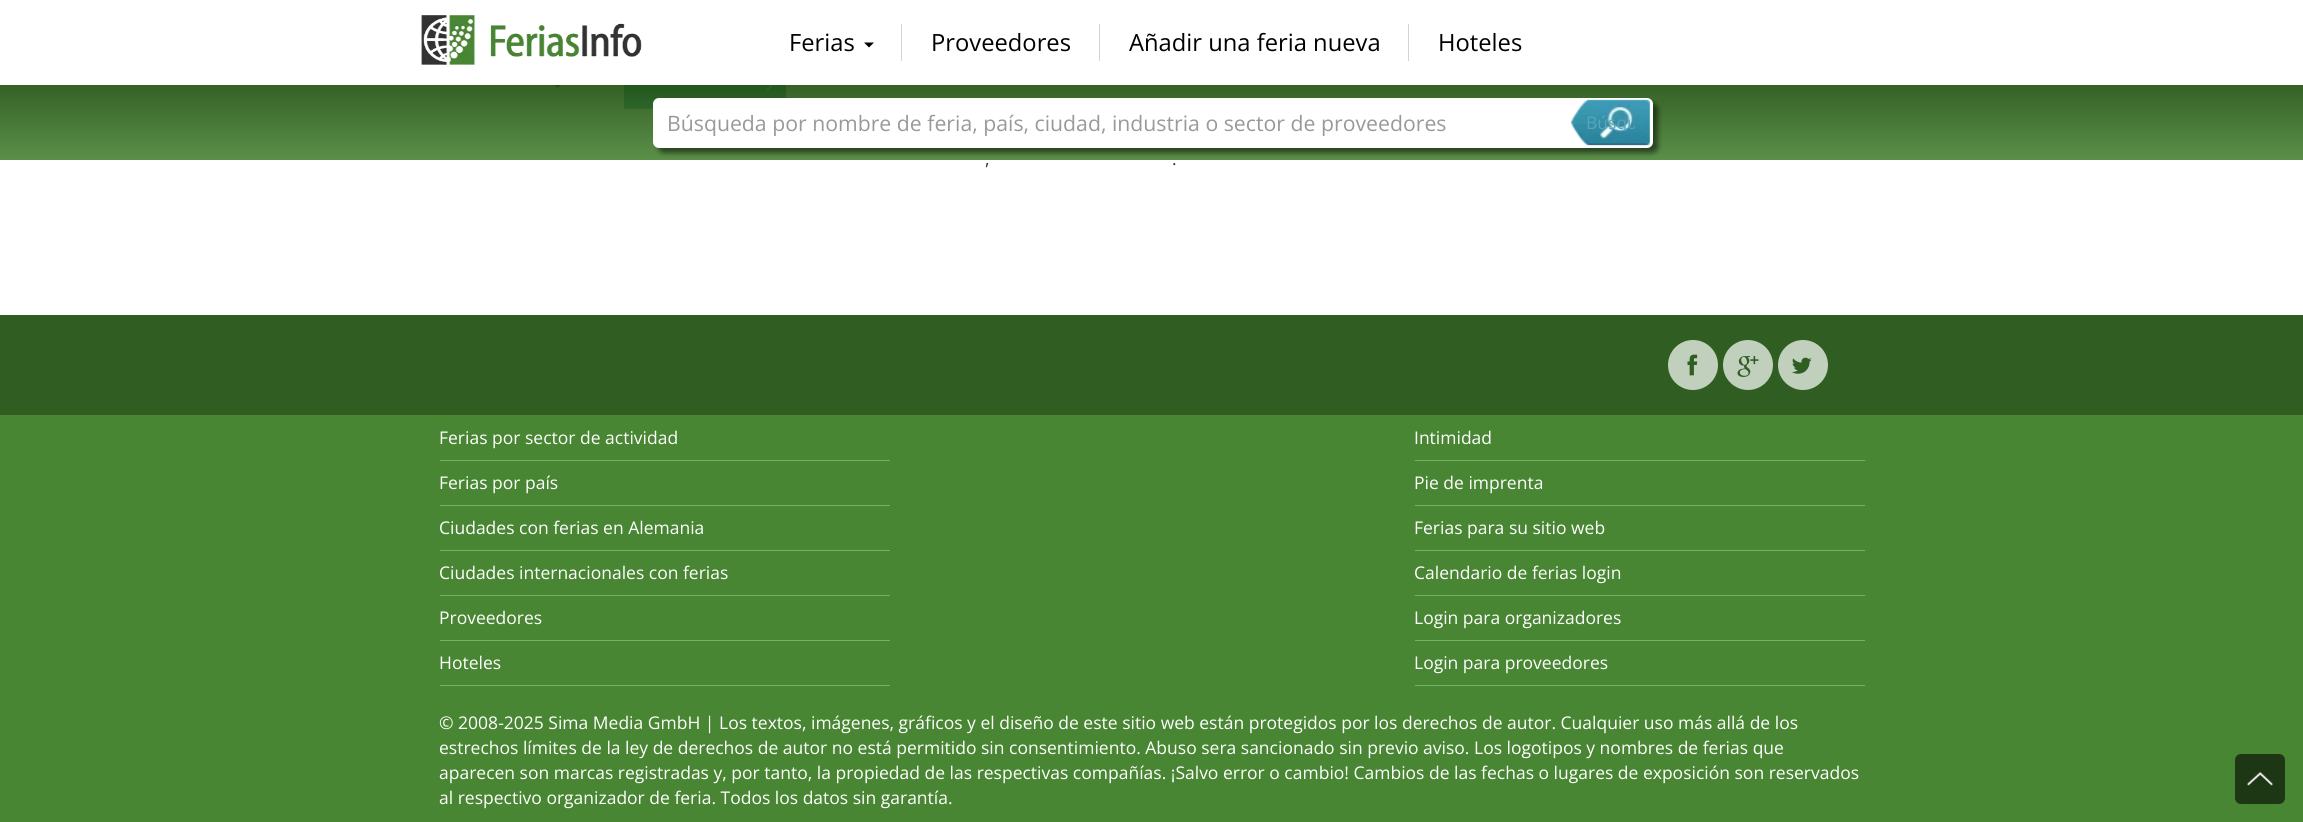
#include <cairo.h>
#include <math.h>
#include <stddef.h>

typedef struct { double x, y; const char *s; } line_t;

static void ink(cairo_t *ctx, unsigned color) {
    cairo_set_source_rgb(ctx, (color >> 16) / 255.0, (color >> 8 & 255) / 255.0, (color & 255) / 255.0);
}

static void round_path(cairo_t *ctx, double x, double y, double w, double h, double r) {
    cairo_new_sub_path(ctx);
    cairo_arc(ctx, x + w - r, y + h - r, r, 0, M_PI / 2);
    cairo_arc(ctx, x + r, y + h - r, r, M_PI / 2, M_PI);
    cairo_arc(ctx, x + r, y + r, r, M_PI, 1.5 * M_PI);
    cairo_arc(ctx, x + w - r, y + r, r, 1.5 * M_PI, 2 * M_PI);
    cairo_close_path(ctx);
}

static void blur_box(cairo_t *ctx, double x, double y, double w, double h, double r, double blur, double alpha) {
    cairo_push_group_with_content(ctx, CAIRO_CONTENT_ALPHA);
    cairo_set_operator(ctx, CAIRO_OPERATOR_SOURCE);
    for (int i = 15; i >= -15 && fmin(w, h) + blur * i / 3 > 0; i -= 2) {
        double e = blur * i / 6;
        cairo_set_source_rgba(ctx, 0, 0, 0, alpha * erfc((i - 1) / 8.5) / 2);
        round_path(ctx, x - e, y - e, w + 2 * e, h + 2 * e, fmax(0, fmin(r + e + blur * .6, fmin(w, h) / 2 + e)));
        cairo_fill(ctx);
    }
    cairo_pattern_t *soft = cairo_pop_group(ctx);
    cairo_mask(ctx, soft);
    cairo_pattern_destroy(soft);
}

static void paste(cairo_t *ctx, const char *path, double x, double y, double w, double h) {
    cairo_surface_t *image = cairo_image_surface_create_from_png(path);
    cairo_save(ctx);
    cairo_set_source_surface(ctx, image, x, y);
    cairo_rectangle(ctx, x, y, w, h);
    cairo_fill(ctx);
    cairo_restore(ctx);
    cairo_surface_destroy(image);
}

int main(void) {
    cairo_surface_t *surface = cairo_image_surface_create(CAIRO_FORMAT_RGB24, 2303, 822);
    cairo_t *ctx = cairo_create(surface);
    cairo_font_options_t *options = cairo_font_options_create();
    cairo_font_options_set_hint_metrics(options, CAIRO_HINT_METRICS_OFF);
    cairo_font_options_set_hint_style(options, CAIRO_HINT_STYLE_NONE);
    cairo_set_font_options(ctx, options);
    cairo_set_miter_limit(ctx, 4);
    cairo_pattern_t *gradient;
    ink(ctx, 0xFFFFFF);
    cairo_paint(ctx);
    paste(ctx, "media/1.png", 421, 15, 221, 50);
    cairo_select_font_face(ctx, "Open Sans", CAIRO_FONT_SLANT_NORMAL, CAIRO_FONT_WEIGHT_NORMAL);
    cairo_set_font_size(ctx, 23.75);
    ink(ctx, 0x000000);
    cairo_move_to(ctx, 789, 51);
    cairo_show_text(ctx, "Ferias");
    cairo_new_path(ctx);
    cairo_move_to(ctx, 864, 42.5);
    cairo_line_to(ctx, 874, 42.5);
    cairo_line_to(ctx, 869, 47.5);
    cairo_close_path(ctx);
    cairo_fill(ctx);
    ink(ctx, 0xD3D3D3);
    cairo_rectangle(ctx, 901, 24, 1, 37);
    cairo_fill(ctx);
    ink(ctx, 0x000000);
    cairo_move_to(ctx, 931, 51);
    cairo_show_text(ctx, "Proveedores");
    ink(ctx, 0xD3D3D3);
    cairo_rectangle(ctx, 1099, 24, 1, 37);
    cairo_fill(ctx);
    ink(ctx, 0x000000);
    cairo_move_to(ctx, 1129, 51);
    cairo_show_text(ctx, "Añadir una feria nueva");
    ink(ctx, 0xD3D3D3);
    cairo_rectangle(ctx, 1408, 24, 1, 37);
    cairo_fill(ctx);
    ink(ctx, 0x000000);
    cairo_move_to(ctx, 1438, 51);
    cairo_show_text(ctx, "Hoteles");
    ink(ctx, 0xF6F8F3);
    cairo_rectangle(ctx, 440, 85, 184, 24);
    cairo_fill(ctx);
    paste(ctx, "media/3.png", 553, 85, 9, 3);
    ink(ctx, 0x3B91AA);
    cairo_rectangle(ctx, 624, 85, 162, 24);
    cairo_fill(ctx);
    paste(ctx, "media/4.png", 766, 85, 8, 7);
    gradient = cairo_pattern_create_linear(1152, 85, 1152, 160);
    cairo_pattern_add_color_stop_rgba(gradient, 0, 0.122, 0.314, 0.055, 0.9);
    cairo_pattern_add_color_stop_rgba(gradient, 1, 0.286, 0.518, 0.208, 0.9);
    cairo_set_source(ctx, gradient);
    cairo_pattern_destroy(gradient);
    cairo_rectangle(ctx, 0, 85, 2303, 75);
    cairo_fill(ctx);
    ink(ctx, 0x000000);
    blur_box(ctx, 658, 103, 1000, 50, 6, 2.5, 0.5);
    ink(ctx, 0xFFFFFF);
    round_path(ctx, 653, 98, 1000, 50, 6);
    cairo_fill(ctx);
    cairo_set_font_size(ctx, 21.25);
    ink(ctx, 0x999999);
    cairo_move_to(ctx, 667, 131);
    cairo_show_text(ctx, "Búsqueda por nombre de feria, país, ciudad, industria o sector de proveedores");
    paste(ctx, "media/2.png", 1571, 99, 79, 47);
    cairo_save(ctx);
    cairo_rectangle(ctx, 1586, 114, 49, 17);
    cairo_clip(ctx);
    cairo_set_font_size(ctx, 17.5);
    ink(ctx, 0x58A4B8);
    cairo_move_to(ctx, 1586, 129);
    cairo_show_text(ctx, "Búsqu");
    cairo_restore(ctx);
    cairo_set_font_size(ctx, 17.5);
    ink(ctx, 0x333333);
    cairo_move_to(ctx, 985, 165);
    cairo_show_text(ctx, ",");
    cairo_move_to(ctx, 1172, 165);
    cairo_show_text(ctx, ".");
    ink(ctx, 0x305E22);
    cairo_rectangle(ctx, 0, 315, 2303, 100);
    cairo_fill(ctx);
    ink(ctx, 0xC1CFBD);
    cairo_arc(ctx, 1693, 365, 25, 0, 2 * M_PI);
    cairo_fill(ctx);
    paste(ctx, "media/5.png", 1687, 354, 11, 22);
    cairo_arc(ctx, 1748, 365, 25, 0, 2 * M_PI);
    cairo_fill(ctx);
    paste(ctx, "media/6.png", 1737, 356, 22, 21);
    cairo_arc(ctx, 1803, 365, 25, 0, 2 * M_PI);
    cairo_fill(ctx);
    paste(ctx, "media/7.png", 1792, 357, 20, 17);
    ink(ctx, 0x488633);
    cairo_rectangle(ctx, 0, 415, 2303, 407);
    cairo_fill(ctx);
    ink(ctx, 0x75B265);
    cairo_rectangle(ctx, 440, 460, 450, 1);
    cairo_fill(ctx);
    ink(ctx, 0xFFFFFF);
    cairo_move_to(ctx, 439, 444);
    cairo_show_text(ctx, "Ferias por sector de actividad");
    ink(ctx, 0x75B265);
    cairo_rectangle(ctx, 440, 505, 450, 1);
    cairo_fill(ctx);
    ink(ctx, 0xFFFFFF);
    cairo_move_to(ctx, 439, 489);
    cairo_show_text(ctx, "Ferias por país");
    ink(ctx, 0x75B265);
    cairo_rectangle(ctx, 440, 550, 450, 1);
    cairo_fill(ctx);
    ink(ctx, 0xFFFFFF);
    cairo_move_to(ctx, 439, 534);
    cairo_show_text(ctx, "Ciudades con ferias en Alemania");
    ink(ctx, 0x75B265);
    cairo_rectangle(ctx, 440, 595, 450, 1);
    cairo_fill(ctx);
    ink(ctx, 0xFFFFFF);
    cairo_move_to(ctx, 439, 579);
    cairo_show_text(ctx, "Ciudades internacionales con ferias");
    ink(ctx, 0x75B265);
    cairo_rectangle(ctx, 440, 640, 450, 1);
    cairo_fill(ctx);
    ink(ctx, 0xFFFFFF);
    cairo_move_to(ctx, 439, 624);
    cairo_show_text(ctx, "Proveedores");
    ink(ctx, 0x75B265);
    cairo_rectangle(ctx, 440, 685, 450, 1);
    cairo_fill(ctx);
    ink(ctx, 0xFFFFFF);
    cairo_move_to(ctx, 439, 669);
    cairo_show_text(ctx, "Hoteles");
    ink(ctx, 0x75B265);
    cairo_rectangle(ctx, 1415, 460, 450, 1);
    cairo_fill(ctx);
    ink(ctx, 0xFFFFFF);
    cairo_move_to(ctx, 1414, 444);
    cairo_show_text(ctx, "Intimidad");
    ink(ctx, 0x75B265);
    cairo_rectangle(ctx, 1415, 505, 450, 1);
    cairo_fill(ctx);
    ink(ctx, 0xFFFFFF);
    cairo_move_to(ctx, 1414, 489);
    cairo_show_text(ctx, "Pie de imprenta");
    ink(ctx, 0x75B265);
    cairo_rectangle(ctx, 1415, 550, 450, 1);
    cairo_fill(ctx);
    ink(ctx, 0xFFFFFF);
    cairo_move_to(ctx, 1414, 534);
    cairo_show_text(ctx, "Ferias para su sitio web");
    ink(ctx, 0x75B265);
    cairo_rectangle(ctx, 1415, 595, 450, 1);
    cairo_fill(ctx);
    ink(ctx, 0xFFFFFF);
    cairo_move_to(ctx, 1414, 579);
    cairo_show_text(ctx, "Calendario de ferias login");
    ink(ctx, 0x75B265);
    cairo_rectangle(ctx, 1415, 640, 450, 1);
    cairo_fill(ctx);
    ink(ctx, 0xFFFFFF);
    cairo_move_to(ctx, 1414, 624);
    cairo_show_text(ctx, "Login para organizadores");
    ink(ctx, 0x75B265);
    cairo_rectangle(ctx, 1415, 685, 450, 1);
    cairo_fill(ctx);
    ink(ctx, 0xFFFFFF);
    {
        static const line_t items[] = {
            {1414, 669, "Login para proveedores"},
            {439, 729, "© 2008-2025 Sima Media GmbH | Los textos, imágenes, gráficos y el diseño de este sitio web están protegidos por los derechos de autor. Cualquier uso más allá de los"},
            {439, 754, "estrechos límites de la ley de derechos de autor no está permitido sin consentimiento. Abuso sera sancionado sin previo aviso. Los logotipos y nombres de ferias que"},
            {439, 779, "aparecen son marcas registradas y, por tanto, la propiedad de las respectivas compañías. ¡Salvo error o cambio! Cambios de las fechas o lugares de exposición son reservados"},
            {439, 804, "al respectivo organizador de feria. Todos los datos sin garantía."},
        };
        for (size_t i = 0; i < sizeof items / sizeof *items; i++) {
            cairo_move_to(ctx, items[i].x, items[i].y);
            cairo_show_text(ctx, items[i].s);
        }
    }
    ink(ctx, 0x1D3614);
    round_path(ctx, 2235, 754, 50, 50, 6);
    cairo_fill(ctx);
    paste(ctx, "media/8.png", 2247, 771, 26, 15);
    cairo_surface_write_to_png(surface, "image.png");
    cairo_font_options_destroy(options);
    cairo_destroy(ctx);
    cairo_surface_destroy(surface);
    return 0;
}
